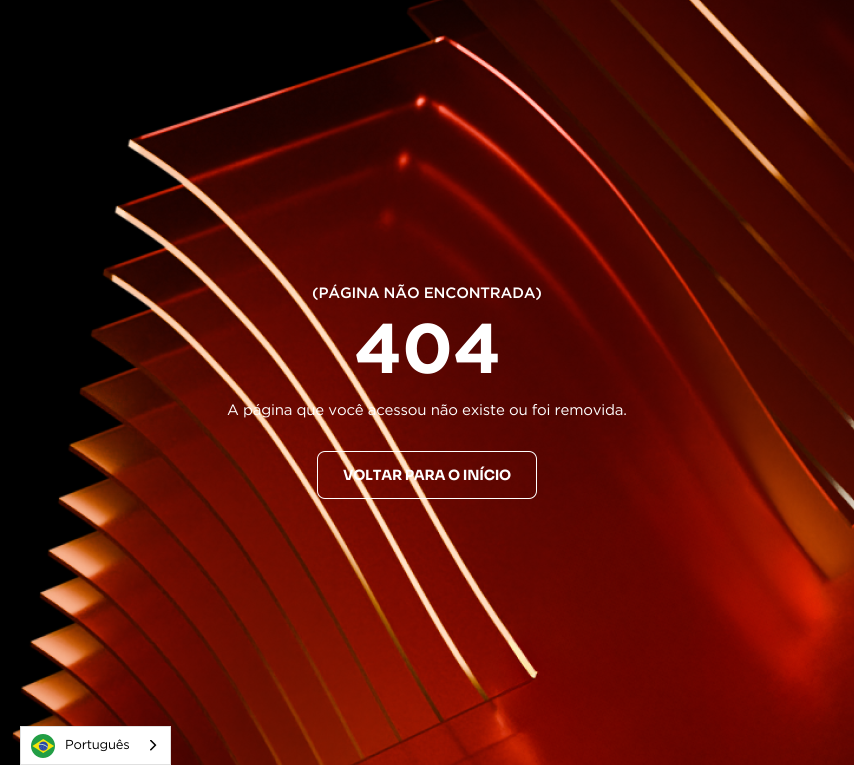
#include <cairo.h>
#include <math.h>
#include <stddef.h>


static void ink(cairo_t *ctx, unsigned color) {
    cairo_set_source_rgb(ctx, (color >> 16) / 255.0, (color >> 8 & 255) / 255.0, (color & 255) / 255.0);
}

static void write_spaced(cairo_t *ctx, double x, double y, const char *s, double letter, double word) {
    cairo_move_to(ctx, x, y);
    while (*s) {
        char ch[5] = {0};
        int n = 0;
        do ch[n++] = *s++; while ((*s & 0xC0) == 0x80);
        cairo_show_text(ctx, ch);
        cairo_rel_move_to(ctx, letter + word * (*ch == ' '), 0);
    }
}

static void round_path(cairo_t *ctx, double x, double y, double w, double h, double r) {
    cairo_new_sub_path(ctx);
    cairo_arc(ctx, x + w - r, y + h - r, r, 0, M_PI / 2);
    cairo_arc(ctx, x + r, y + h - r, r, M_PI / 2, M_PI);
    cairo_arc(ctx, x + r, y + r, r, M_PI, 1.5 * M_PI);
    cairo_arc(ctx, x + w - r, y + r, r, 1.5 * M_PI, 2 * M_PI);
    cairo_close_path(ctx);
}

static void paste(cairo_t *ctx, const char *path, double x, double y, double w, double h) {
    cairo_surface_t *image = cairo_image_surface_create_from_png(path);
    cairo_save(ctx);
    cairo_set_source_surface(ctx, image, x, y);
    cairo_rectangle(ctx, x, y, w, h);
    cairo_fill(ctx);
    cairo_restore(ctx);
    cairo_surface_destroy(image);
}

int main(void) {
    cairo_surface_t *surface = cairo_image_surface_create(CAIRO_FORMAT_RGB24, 854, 765);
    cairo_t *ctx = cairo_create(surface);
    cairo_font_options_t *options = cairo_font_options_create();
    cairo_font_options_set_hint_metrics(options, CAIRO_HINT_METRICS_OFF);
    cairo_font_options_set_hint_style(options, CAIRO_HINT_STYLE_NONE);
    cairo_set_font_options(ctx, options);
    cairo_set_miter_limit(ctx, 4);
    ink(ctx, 0x000000);
    cairo_paint(ctx);
    paste(ctx, "media/1.png", 12, 0, 842, 765);
    cairo_select_font_face(ctx, "Gotham Medium", CAIRO_FONT_SLANT_NORMAL, CAIRO_FONT_WEIGHT_NORMAL);
    cairo_set_font_size(ctx, 15);
    ink(ctx, 0xFFFFFF);
    write_spaced(ctx, 312, 298, "(PÁGINA NÃO ENCONTRADA)", -0.2, 0);
    cairo_select_font_face(ctx, "Gotham", CAIRO_FONT_SLANT_NORMAL, CAIRO_FONT_WEIGHT_BOLD);
    cairo_set_font_size(ctx, 70);
    write_spaced(ctx, 354, 373, "404", -0.2, 0);
    cairo_select_font_face(ctx, "Gotham", CAIRO_FONT_SLANT_NORMAL, CAIRO_FONT_WEIGHT_NORMAL);
    cairo_set_font_size(ctx, 15);
    write_spaced(ctx, 227, 415, "A página que você acessou não existe ou foi removida.", -0.2, 0);
    round_path(ctx, 317.5, 451.5, 219, 47, 7.5);
    cairo_set_line_width(ctx, 1);
    cairo_stroke(ctx);
    cairo_select_font_face(ctx, "Sora", CAIRO_FONT_SLANT_NORMAL, CAIRO_FONT_WEIGHT_BOLD);
    cairo_set_font_size(ctx, 14);
    write_spaced(ctx, 343, 480, "VOLTAR PARA O INÍCIO", -0.2, 0);
    cairo_rectangle(ctx, 20.5, 726.5, 150, 38);
    cairo_fill_preserve(ctx);
    ink(ctx, 0xE0E0E0);
    cairo_stroke(ctx);
    paste(ctx, "media/2.png", 31, 734, 24, 24);
    cairo_select_font_face(ctx, "Gotham", CAIRO_FONT_SLANT_NORMAL, CAIRO_FONT_WEIGHT_NORMAL);
    cairo_set_font_size(ctx, 13);
    ink(ctx, 0x000000);
    write_spaced(ctx, 65, 749, "Português", -0.2, 0);
    paste(ctx, "media/3.png", 150, 740, 7, 11);
    cairo_surface_write_to_png(surface, "image.png");
    cairo_font_options_destroy(options);
    cairo_destroy(ctx);
    cairo_surface_destroy(surface);
    return 0;
}
